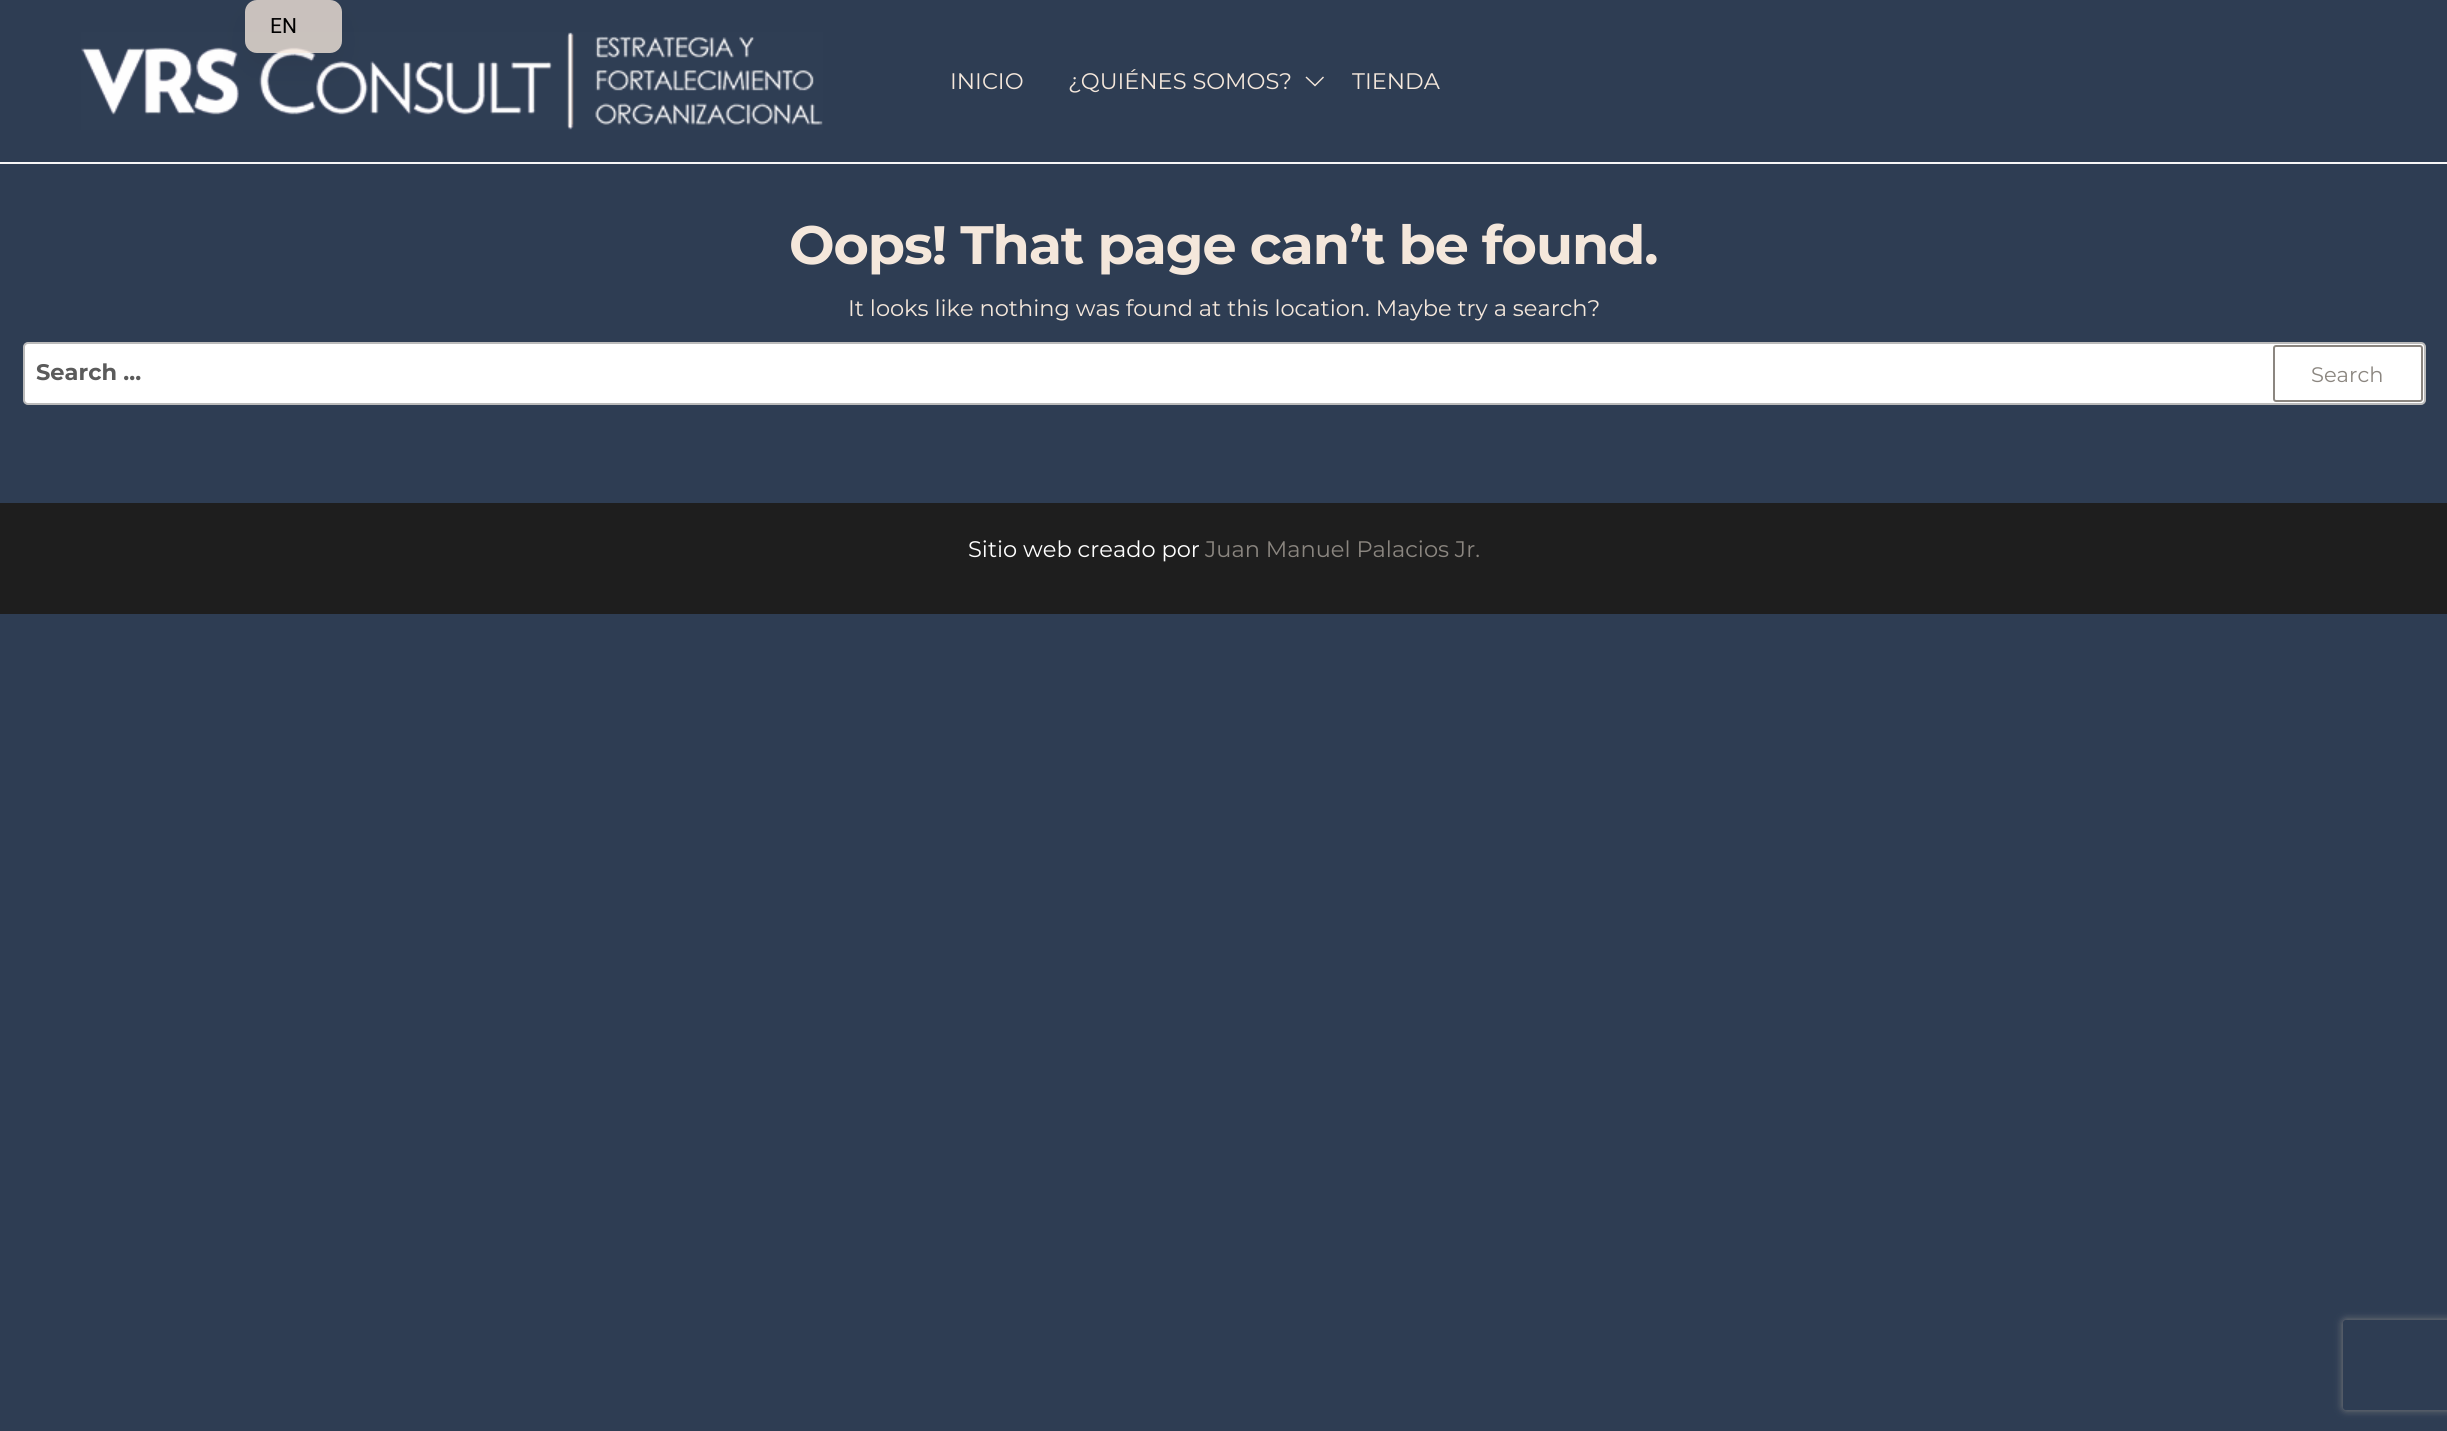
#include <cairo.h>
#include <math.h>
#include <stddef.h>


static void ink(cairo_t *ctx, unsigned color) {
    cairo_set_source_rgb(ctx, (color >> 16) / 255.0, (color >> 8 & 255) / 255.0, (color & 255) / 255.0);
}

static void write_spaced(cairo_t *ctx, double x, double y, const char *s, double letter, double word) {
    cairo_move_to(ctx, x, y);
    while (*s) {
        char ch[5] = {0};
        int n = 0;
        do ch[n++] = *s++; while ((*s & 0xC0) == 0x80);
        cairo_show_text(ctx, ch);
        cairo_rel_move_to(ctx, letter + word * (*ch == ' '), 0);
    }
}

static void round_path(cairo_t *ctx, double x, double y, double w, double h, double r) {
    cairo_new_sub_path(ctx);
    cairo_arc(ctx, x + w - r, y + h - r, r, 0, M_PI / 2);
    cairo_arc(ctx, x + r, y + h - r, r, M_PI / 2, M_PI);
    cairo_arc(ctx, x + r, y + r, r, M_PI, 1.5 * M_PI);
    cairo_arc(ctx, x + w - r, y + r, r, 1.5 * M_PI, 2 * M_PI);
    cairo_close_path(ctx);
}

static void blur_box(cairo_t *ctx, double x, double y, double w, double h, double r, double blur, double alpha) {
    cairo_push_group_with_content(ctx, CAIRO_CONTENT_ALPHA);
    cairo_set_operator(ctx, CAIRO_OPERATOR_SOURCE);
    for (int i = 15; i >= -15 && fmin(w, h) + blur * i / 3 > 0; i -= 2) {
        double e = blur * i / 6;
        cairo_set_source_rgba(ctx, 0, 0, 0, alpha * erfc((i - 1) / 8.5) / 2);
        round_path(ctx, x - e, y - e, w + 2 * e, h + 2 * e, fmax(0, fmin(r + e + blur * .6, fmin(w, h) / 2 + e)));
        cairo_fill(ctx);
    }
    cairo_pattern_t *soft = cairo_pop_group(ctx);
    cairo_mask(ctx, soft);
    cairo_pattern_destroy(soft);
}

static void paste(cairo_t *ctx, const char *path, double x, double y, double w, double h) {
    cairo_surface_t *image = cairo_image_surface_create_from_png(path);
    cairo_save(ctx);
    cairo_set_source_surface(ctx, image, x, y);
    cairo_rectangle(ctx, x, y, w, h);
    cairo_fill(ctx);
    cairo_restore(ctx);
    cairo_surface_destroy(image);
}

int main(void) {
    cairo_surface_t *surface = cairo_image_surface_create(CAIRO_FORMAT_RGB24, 2447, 1431);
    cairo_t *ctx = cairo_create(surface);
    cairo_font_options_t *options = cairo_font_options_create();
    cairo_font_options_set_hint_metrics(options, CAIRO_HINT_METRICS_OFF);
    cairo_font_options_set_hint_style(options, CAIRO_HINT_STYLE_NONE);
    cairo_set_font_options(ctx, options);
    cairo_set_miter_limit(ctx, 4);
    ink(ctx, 0x2E3D53);
    cairo_paint(ctx);
    paste(ctx, "media/1.png", 81, 32, 742, 98);
    cairo_save(ctx);
    cairo_set_fill_rule(ctx, CAIRO_FILL_RULE_EVEN_ODD);
    cairo_new_path(ctx);
    cairo_move_to(ctx, 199, 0);
    cairo_line_to(ctx, 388, 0);
    cairo_line_to(ctx, 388, 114);
    cairo_line_to(ctx, 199, 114);
    cairo_close_path(ctx);
    cairo_move_to(ctx, 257, 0);
    cairo_line_to(ctx, 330, 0);
    cairo_curve_to(ctx, 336.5, 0, 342, 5.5, 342, 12);
    cairo_line_to(ctx, 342, 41);
    cairo_curve_to(ctx, 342, 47.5, 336.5, 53, 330, 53);
    cairo_line_to(ctx, 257, 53);
    cairo_curve_to(ctx, 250.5, 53, 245, 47.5, 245, 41);
    cairo_line_to(ctx, 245, 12);
    cairo_curve_to(ctx, 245, 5.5, 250.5, 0, 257, 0);
    cairo_close_path(ctx);
    cairo_clip(ctx);
    ink(ctx, 0x000000);
    blur_box(ctx, 245, 15, 97, 53, 12, 15, 0.05);
    cairo_restore(ctx);
    cairo_set_source_rgba(ctx, 0.957, 0.906, 0.859, 0.78);
    round_path(ctx, 245, 0, 97, 53, 12);
    cairo_fill(ctx);
    cairo_select_font_face(ctx, "Roboto", CAIRO_FONT_SLANT_NORMAL, CAIRO_FONT_WEIGHT_NORMAL);
    cairo_set_font_size(ctx, 21);
    ink(ctx, 0x000000);
    cairo_move_to(ctx, 270, 33);
    cairo_show_text(ctx, "EN");
    ink(ctx, 0xF6F6F6);
    cairo_rectangle(ctx, 0, 162, 2447, 2);
    cairo_fill(ctx);
    cairo_select_font_face(ctx, "Montserrat", CAIRO_FONT_SLANT_NORMAL, CAIRO_FONT_WEIGHT_NORMAL);
    cairo_set_font_size(ctx, 22.5);
    ink(ctx, 0xF4E7DB);
    cairo_move_to(ctx, 950, 89);
    cairo_show_text(ctx, "INICIO");
    cairo_move_to(ctx, 1068, 89);
    cairo_show_text(ctx, "¿QUIÉNES SOMOS?");
    cairo_new_path(ctx);
    cairo_move_to(ctx, 1306.5, 76.5);
    cairo_line_to(ctx, 1305.5, 77.5);
    cairo_line_to(ctx, 1315, 86.5);
    cairo_line_to(ctx, 1324, 77.5);
    cairo_line_to(ctx, 1323, 76.5);
    cairo_line_to(ctx, 1315, 84.5);
    cairo_close_path(ctx);
    cairo_fill(ctx);
    cairo_move_to(ctx, 1352, 89);
    cairo_show_text(ctx, "TIENDA");
    cairo_select_font_face(ctx, "Montserrat", CAIRO_FONT_SLANT_NORMAL, CAIRO_FONT_WEIGHT_BOLD);
    cairo_set_font_size(ctx, 54);
    write_spaced(ctx, 789, 264, "Oops! That page can’t be found.", -1.1, 0);
    cairo_select_font_face(ctx, "Montserrat", CAIRO_FONT_SLANT_NORMAL, CAIRO_FONT_WEIGHT_NORMAL);
    cairo_set_font_size(ctx, 22.5);
    cairo_move_to(ctx, 848, 316);
    cairo_show_text(ctx, "It looks like nothing was found at this location. Maybe try a search?");
    ink(ctx, 0xFFFFFF);
    round_path(ctx, 24, 343, 2401, 61, 4);
    cairo_fill_preserve(ctx);
    ink(ctx, 0xBBBBBB);
    cairo_stroke(ctx);
    cairo_select_font_face(ctx, "Montserrat", CAIRO_FONT_SLANT_NORMAL, CAIRO_FONT_WEIGHT_BOLD);
    ink(ctx, 0x5B5B5B);
    cairo_move_to(ctx, 36, 380);
    cairo_show_text(ctx, "Search …");
    round_path(ctx, 2274, 346, 148, 55, 2);
    ink(ctx, 0x8B8680);
    cairo_stroke(ctx);
    cairo_select_font_face(ctx, "Montserrat", CAIRO_FONT_SLANT_NORMAL, CAIRO_FONT_WEIGHT_NORMAL);
    cairo_set_font_size(ctx, 21);
    cairo_move_to(ctx, 2311, 382);
    cairo_show_text(ctx, "Search");
    ink(ctx, 0x1E1E1E);
    cairo_rectangle(ctx, 0, 503, 2447, 111);
    cairo_fill(ctx);
    cairo_set_font_size(ctx, 22.5);
    ink(ctx, 0xFFFFFF);
    cairo_move_to(ctx, 968, 557);
    cairo_show_text(ctx, "Sitio web creado por");
    ink(ctx, 0x8B8680);
    cairo_move_to(ctx, 1205, 557);
    cairo_show_text(ctx, "Juan Manuel Palacios Jr.");
    cairo_save(ctx);
    cairo_set_fill_rule(ctx, CAIRO_FILL_RULE_EVEN_ODD);
    cairo_new_path(ctx);
    cairo_move_to(ctx, 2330, 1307);
    cairo_line_to(ctx, 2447, 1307);
    cairo_line_to(ctx, 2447, 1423);
    cairo_line_to(ctx, 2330, 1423);
    cairo_close_path(ctx);
    cairo_move_to(ctx, 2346, 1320);
    cairo_line_to(ctx, 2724, 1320);
    cairo_curve_to(ctx, 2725.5, 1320, 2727, 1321.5, 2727, 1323);
    cairo_line_to(ctx, 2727, 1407);
    cairo_curve_to(ctx, 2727, 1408.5, 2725.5, 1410, 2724, 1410);
    cairo_line_to(ctx, 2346, 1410);
    cairo_curve_to(ctx, 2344.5, 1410, 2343, 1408.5, 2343, 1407);
    cairo_line_to(ctx, 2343, 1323);
    cairo_curve_to(ctx, 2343, 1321.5, 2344.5, 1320, 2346, 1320);
    cairo_close_path(ctx);
    cairo_clip(ctx);
    ink(ctx, 0x808080);
    blur_box(ctx, 2343, 1320, 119, 90, 3, 4, 1);
    cairo_restore(ctx);
    cairo_surface_write_to_png(surface, "image.png");
    cairo_font_options_destroy(options);
    cairo_destroy(ctx);
    cairo_surface_destroy(surface);
    return 0;
}
